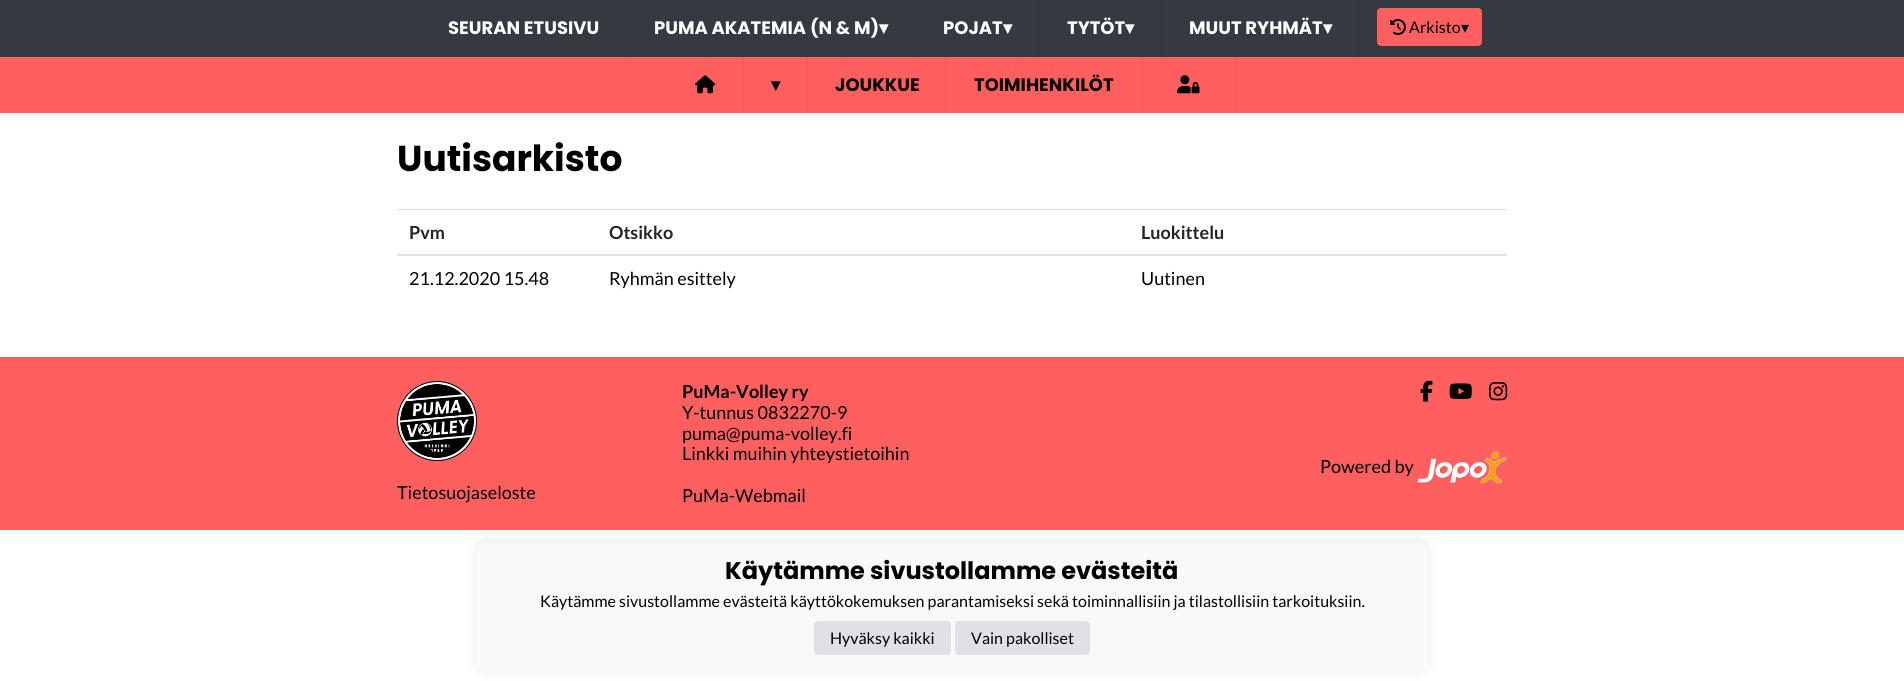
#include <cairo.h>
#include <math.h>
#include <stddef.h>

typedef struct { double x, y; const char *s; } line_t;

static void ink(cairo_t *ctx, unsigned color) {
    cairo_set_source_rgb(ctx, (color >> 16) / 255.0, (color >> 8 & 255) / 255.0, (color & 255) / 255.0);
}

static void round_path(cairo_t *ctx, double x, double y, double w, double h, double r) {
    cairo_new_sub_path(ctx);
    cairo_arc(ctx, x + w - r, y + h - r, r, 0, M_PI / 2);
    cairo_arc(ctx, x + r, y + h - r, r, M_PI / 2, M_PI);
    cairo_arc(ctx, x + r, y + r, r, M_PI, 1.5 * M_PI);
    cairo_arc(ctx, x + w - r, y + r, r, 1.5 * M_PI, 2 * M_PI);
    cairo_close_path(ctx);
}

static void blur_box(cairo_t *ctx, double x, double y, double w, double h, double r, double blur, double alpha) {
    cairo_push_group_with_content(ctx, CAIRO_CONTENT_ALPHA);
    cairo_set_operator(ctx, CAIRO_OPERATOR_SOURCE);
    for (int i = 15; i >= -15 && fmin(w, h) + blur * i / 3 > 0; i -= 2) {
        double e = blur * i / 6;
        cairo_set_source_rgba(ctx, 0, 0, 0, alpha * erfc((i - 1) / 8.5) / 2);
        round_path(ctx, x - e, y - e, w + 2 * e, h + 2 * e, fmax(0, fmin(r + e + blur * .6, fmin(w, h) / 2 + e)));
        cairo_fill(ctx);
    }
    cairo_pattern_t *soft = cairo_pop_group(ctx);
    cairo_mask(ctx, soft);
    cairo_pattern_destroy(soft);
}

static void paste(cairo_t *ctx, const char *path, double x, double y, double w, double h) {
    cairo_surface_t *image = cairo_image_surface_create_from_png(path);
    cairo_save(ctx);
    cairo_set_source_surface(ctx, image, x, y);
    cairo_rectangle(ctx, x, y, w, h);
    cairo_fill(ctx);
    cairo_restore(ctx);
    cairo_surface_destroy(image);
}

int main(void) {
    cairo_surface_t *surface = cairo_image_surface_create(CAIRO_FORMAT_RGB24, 1904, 681);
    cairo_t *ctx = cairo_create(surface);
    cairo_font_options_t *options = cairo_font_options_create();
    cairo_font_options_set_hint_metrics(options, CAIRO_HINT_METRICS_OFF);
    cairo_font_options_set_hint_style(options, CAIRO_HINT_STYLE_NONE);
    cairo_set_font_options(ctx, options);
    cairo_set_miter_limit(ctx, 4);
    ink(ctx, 0xFFFFFF);
    cairo_paint(ctx);
    ink(ctx, 0x343A40);
    cairo_rectangle(ctx, 0, 0, 1904, 57);
    cairo_fill(ctx);
    ink(ctx, 0x31373D);
    cairo_rectangle(ctx, 626, 0, 1, 57);
    cairo_fill(ctx);
    cairo_select_font_face(ctx, "Poppins", CAIRO_FONT_SLANT_NORMAL, CAIRO_FONT_WEIGHT_BOLD);
    cairo_set_font_size(ctx, 18);
    ink(ctx, 0xFFFFFF);
    cairo_move_to(ctx, 448, 34);
    cairo_show_text(ctx, "SEURAN ETUSIVU");
    ink(ctx, 0x31373D);
    cairo_rectangle(ctx, 915, 0, 1, 57);
    cairo_fill(ctx);
    ink(ctx, 0xFFFFFF);
    cairo_move_to(ctx, 654, 34);
    cairo_show_text(ctx, "PUMA AKATEMIA (N & M)");
    cairo_select_font_face(ctx, "DejaVu Sans", CAIRO_FONT_SLANT_NORMAL, CAIRO_FONT_WEIGHT_BOLD);
    cairo_move_to(ctx, 879, 34);
    cairo_show_text(ctx, "▾");
    ink(ctx, 0x31373D);
    cairo_rectangle(ctx, 1039, 0, 1, 57);
    cairo_fill(ctx);
    cairo_select_font_face(ctx, "Poppins", CAIRO_FONT_SLANT_NORMAL, CAIRO_FONT_WEIGHT_BOLD);
    ink(ctx, 0xFFFFFF);
    cairo_move_to(ctx, 943, 34);
    cairo_show_text(ctx, "POJAT");
    cairo_select_font_face(ctx, "DejaVu Sans", CAIRO_FONT_SLANT_NORMAL, CAIRO_FONT_WEIGHT_BOLD);
    cairo_move_to(ctx, 1003, 34);
    cairo_show_text(ctx, "▾");
    ink(ctx, 0x31373D);
    cairo_rectangle(ctx, 1161, 0, 1, 57);
    cairo_fill(ctx);
    cairo_select_font_face(ctx, "Poppins", CAIRO_FONT_SLANT_NORMAL, CAIRO_FONT_WEIGHT_BOLD);
    ink(ctx, 0xFFFFFF);
    cairo_move_to(ctx, 1067, 34);
    cairo_show_text(ctx, "TYTÖT");
    cairo_select_font_face(ctx, "DejaVu Sans", CAIRO_FONT_SLANT_NORMAL, CAIRO_FONT_WEIGHT_BOLD);
    cairo_move_to(ctx, 1125, 34);
    cairo_show_text(ctx, "▾");
    ink(ctx, 0x31373D);
    cairo_rectangle(ctx, 1359, 0, 1, 57);
    cairo_fill(ctx);
    cairo_select_font_face(ctx, "Poppins", CAIRO_FONT_SLANT_NORMAL, CAIRO_FONT_WEIGHT_BOLD);
    ink(ctx, 0xFFFFFF);
    cairo_move_to(ctx, 1189, 34);
    cairo_show_text(ctx, "MUUT RYHMÄT");
    cairo_select_font_face(ctx, "DejaVu Sans", CAIRO_FONT_SLANT_NORMAL, CAIRO_FONT_WEIGHT_BOLD);
    cairo_move_to(ctx, 1323, 34);
    cairo_show_text(ctx, "▾");
    ink(ctx, 0x31373D);
    cairo_rectangle(ctx, 1482, 8, 1, 43);
    cairo_fill(ctx);
    ink(ctx, 0xFF5F5F);
    round_path(ctx, 1377, 8, 105, 38, 4);
    cairo_fill(ctx);
    paste(ctx, "media/1.png", 1390, 19, 16, 16);
    cairo_select_font_face(ctx, "Lato", CAIRO_FONT_SLANT_NORMAL, CAIRO_FONT_WEIGHT_NORMAL);
    cairo_set_font_size(ctx, 16);
    ink(ctx, 0x000000);
    cairo_move_to(ctx, 1409, 33);
    cairo_show_text(ctx, "Arkisto");
    cairo_select_font_face(ctx, "DejaVu Sans", CAIRO_FONT_SLANT_NORMAL, CAIRO_FONT_WEIGHT_NORMAL);
    cairo_move_to(ctx, 1461, 33);
    cairo_show_text(ctx, "▾");
    ink(ctx, 0xFF5F5F);
    cairo_rectangle(ctx, 0, 57, 1904, 56);
    cairo_fill(ctx);
    ink(ctx, 0xF25A5A);
    cairo_rectangle(ctx, 743, 57, 1, 56);
    cairo_fill(ctx);
    paste(ctx, "media/2.png", 695, 75, 21, 19);
    cairo_rectangle(ctx, 807, 57, 1, 56);
    cairo_fill(ctx);
    cairo_select_font_face(ctx, "DejaVu Sans", CAIRO_FONT_SLANT_NORMAL, CAIRO_FONT_WEIGHT_BOLD);
    cairo_set_font_size(ctx, 18);
    ink(ctx, 0x000000);
    cairo_move_to(ctx, 771, 91);
    cairo_show_text(ctx, "▾");
    ink(ctx, 0xF25A5A);
    cairo_rectangle(ctx, 946, 57, 1, 56);
    cairo_fill(ctx);
    cairo_select_font_face(ctx, "Poppins", CAIRO_FONT_SLANT_NORMAL, CAIRO_FONT_WEIGHT_BOLD);
    ink(ctx, 0x000000);
    cairo_move_to(ctx, 835, 91);
    cairo_show_text(ctx, "JOUKKUE");
    ink(ctx, 0xF25A5A);
    cairo_rectangle(ctx, 1141, 57, 1, 56);
    cairo_fill(ctx);
    ink(ctx, 0x000000);
    cairo_move_to(ctx, 974, 91);
    cairo_show_text(ctx, "TOIMIHENKILÖT");
    ink(ctx, 0xF25A5A);
    cairo_rectangle(ctx, 1235, 57, 1, 56);
    cairo_fill(ctx);
    paste(ctx, "media/3.png", 1177, 75, 23, 19);
    cairo_set_font_size(ctx, 36);
    ink(ctx, 0x000000);
    cairo_move_to(ctx, 397, 171);
    cairo_show_text(ctx, "Uutisarkisto");
    cairo_select_font_face(ctx, "Lato", CAIRO_FONT_SLANT_NORMAL, CAIRO_FONT_WEIGHT_BOLD);
    cairo_set_font_size(ctx, 18);
    ink(ctx, 0x212529);
    cairo_move_to(ctx, 409, 239);
    cairo_show_text(ctx, "Pvm");
    cairo_move_to(ctx, 609, 239);
    cairo_show_text(ctx, "Otsikko");
    ink(ctx, 0xDEE2E6);
    cairo_rectangle(ctx, 397, 209, 1110, 1);
    cairo_fill(ctx);
    cairo_rectangle(ctx, 397, 254, 1110, 2);
    cairo_fill(ctx);
    ink(ctx, 0x212529);
    cairo_move_to(ctx, 1141, 239);
    cairo_show_text(ctx, "Luokittelu");
    cairo_select_font_face(ctx, "Lato", CAIRO_FONT_SLANT_NORMAL, CAIRO_FONT_WEIGHT_NORMAL);
    ink(ctx, 0x000000);
    {
        static const line_t items[] = {
            {409, 285, "21.12.2020 15.48"},
            {609, 285, "Ryhmän esittely"},
            {1141, 285, "Uutinen"},
        };
        for (size_t i = 0; i < sizeof items / sizeof *items; i++) {
            cairo_move_to(ctx, items[i].x, items[i].y);
            cairo_show_text(ctx, items[i].s);
        }
    }
    ink(ctx, 0xFF5F5F);
    cairo_rectangle(ctx, 0, 357, 1904, 173);
    cairo_fill(ctx);
    cairo_select_font_face(ctx, "Lato", CAIRO_FONT_SLANT_NORMAL, CAIRO_FONT_WEIGHT_BOLD);
    ink(ctx, 0x000000);
    cairo_move_to(ctx, 682, 398);
    cairo_show_text(ctx, "PuMa-Volley ry");
    cairo_select_font_face(ctx, "Lato", CAIRO_FONT_SLANT_NORMAL, CAIRO_FONT_WEIGHT_NORMAL);
    {
        static const line_t items[] = {
            {682, 419, "Y-tunnus 0832270-9"},
            {682, 440, "puma@puma-volley.fi"},
            {682, 460, "Linkki muihin yhteystietoihin"},
            {682, 502, "PuMa-Webmail"},
        };
        for (size_t i = 0; i < sizeof items / sizeof *items; i++) {
            cairo_move_to(ctx, items[i].x, items[i].y);
            cairo_show_text(ctx, items[i].s);
        }
    }
    paste(ctx, "media/4.png", 1420, 380, 13, 22);
    paste(ctx, "media/5.png", 1449, 383, 23, 16);
    paste(ctx, "media/6.png", 1489, 382, 19, 19);
    cairo_move_to(ctx, 1320, 473);
    cairo_show_text(ctx, "Powered by");
    paste(ctx, "media/7.png", 1417, 451, 90, 33);
    paste(ctx, "media/8.png", 397, 381, 80, 80);
    cairo_move_to(ctx, 397, 499);
    cairo_show_text(ctx, "Tietosuojaseloste");
    ink(ctx, 0x000000);
    blur_box(ctx, 476, 540, 952, 132, 10, 5, 0.1);
    ink(ctx, 0xFAF8F8);
    round_path(ctx, 476, 542, 952, 132, 10);
    cairo_fill(ctx);
    cairo_select_font_face(ctx, "Poppins", CAIRO_FONT_SLANT_NORMAL, CAIRO_FONT_WEIGHT_BOLD);
    cairo_set_font_size(ctx, 24);
    ink(ctx, 0x000000);
    cairo_move_to(ctx, 725, 579);
    cairo_show_text(ctx, "Käytämme sivustollamme evästeitä");
    cairo_select_font_face(ctx, "Lato", CAIRO_FONT_SLANT_NORMAL, CAIRO_FONT_WEIGHT_NORMAL);
    cairo_set_font_size(ctx, 16);
    cairo_move_to(ctx, 540, 607);
    cairo_show_text(ctx, "Käytämme sivustollamme evästeitä käyttökokemuksen parantamiseksi sekä toiminnallisiin ja tilastollisiin tarkoituksiin.");
    ink(ctx, 0xDFE1E5);
    round_path(ctx, 814, 621, 137, 34, 4);
    cairo_fill(ctx);
    ink(ctx, 0x000000);
    cairo_move_to(ctx, 830, 644);
    cairo_show_text(ctx, "Hyväksy kaikki");
    ink(ctx, 0xDFE1E5);
    round_path(ctx, 955, 621, 135, 34, 4);
    cairo_fill(ctx);
    ink(ctx, 0x000000);
    cairo_move_to(ctx, 971, 644);
    cairo_show_text(ctx, "Vain pakolliset");
    cairo_surface_write_to_png(surface, "image.png");
    cairo_font_options_destroy(options);
    cairo_destroy(ctx);
    cairo_surface_destroy(surface);
    return 0;
}
